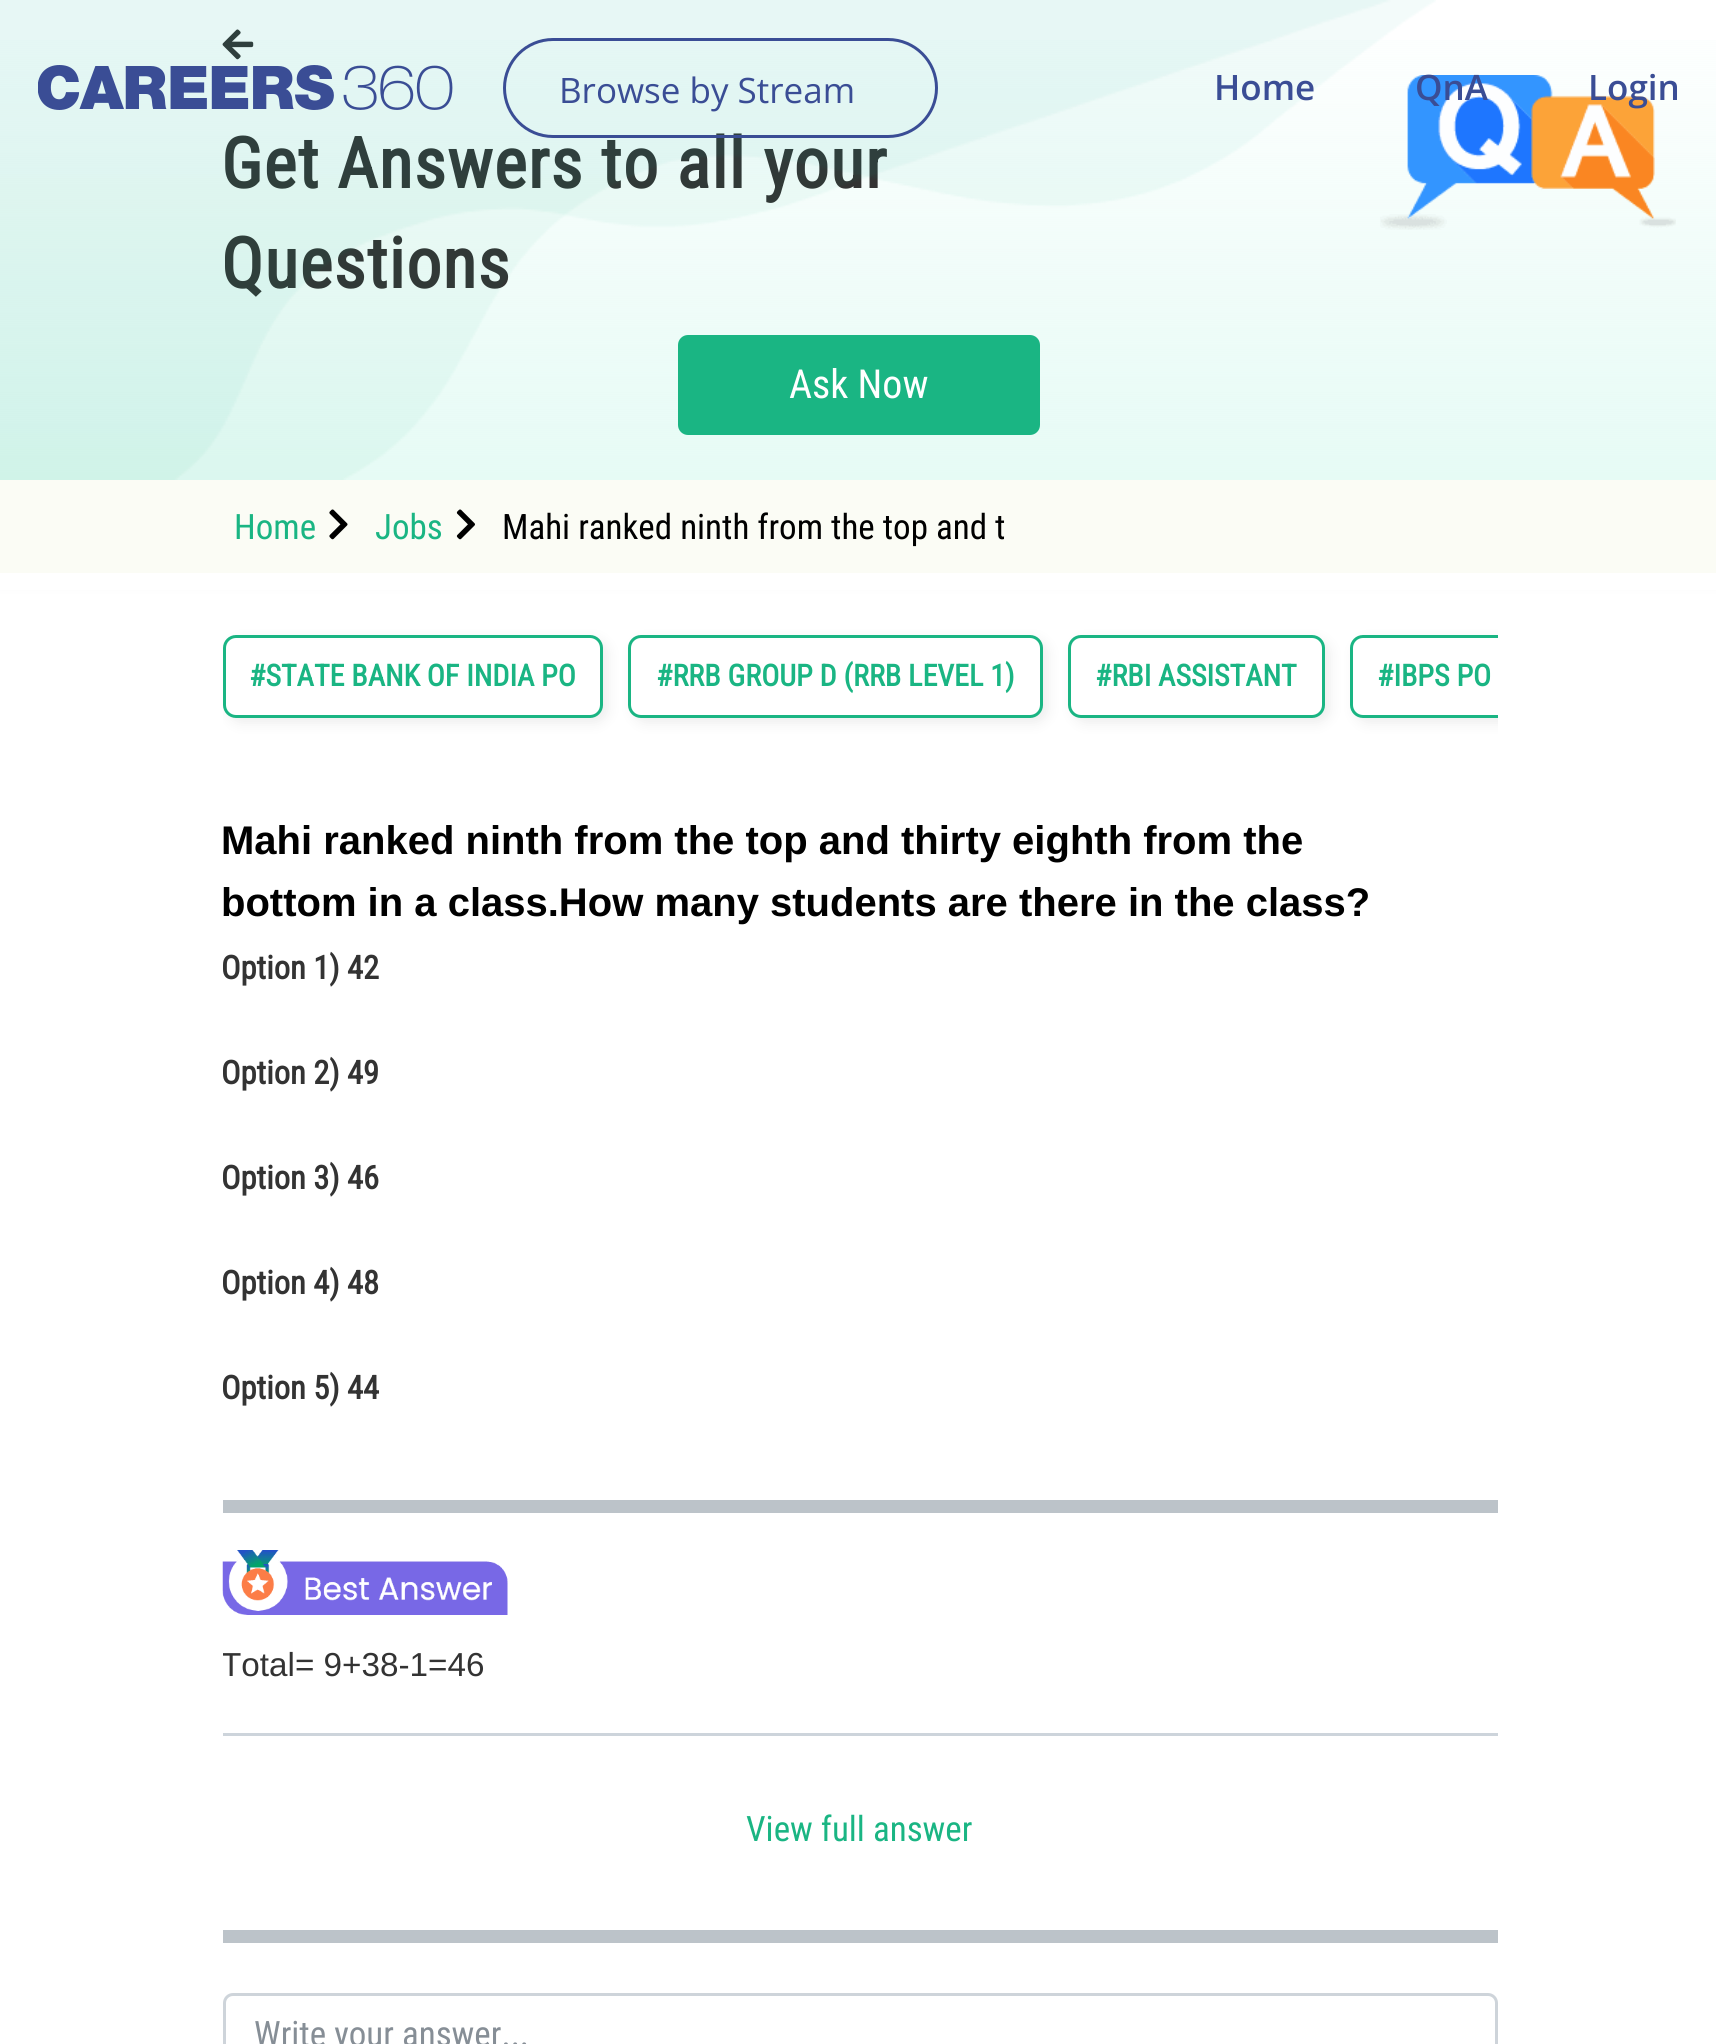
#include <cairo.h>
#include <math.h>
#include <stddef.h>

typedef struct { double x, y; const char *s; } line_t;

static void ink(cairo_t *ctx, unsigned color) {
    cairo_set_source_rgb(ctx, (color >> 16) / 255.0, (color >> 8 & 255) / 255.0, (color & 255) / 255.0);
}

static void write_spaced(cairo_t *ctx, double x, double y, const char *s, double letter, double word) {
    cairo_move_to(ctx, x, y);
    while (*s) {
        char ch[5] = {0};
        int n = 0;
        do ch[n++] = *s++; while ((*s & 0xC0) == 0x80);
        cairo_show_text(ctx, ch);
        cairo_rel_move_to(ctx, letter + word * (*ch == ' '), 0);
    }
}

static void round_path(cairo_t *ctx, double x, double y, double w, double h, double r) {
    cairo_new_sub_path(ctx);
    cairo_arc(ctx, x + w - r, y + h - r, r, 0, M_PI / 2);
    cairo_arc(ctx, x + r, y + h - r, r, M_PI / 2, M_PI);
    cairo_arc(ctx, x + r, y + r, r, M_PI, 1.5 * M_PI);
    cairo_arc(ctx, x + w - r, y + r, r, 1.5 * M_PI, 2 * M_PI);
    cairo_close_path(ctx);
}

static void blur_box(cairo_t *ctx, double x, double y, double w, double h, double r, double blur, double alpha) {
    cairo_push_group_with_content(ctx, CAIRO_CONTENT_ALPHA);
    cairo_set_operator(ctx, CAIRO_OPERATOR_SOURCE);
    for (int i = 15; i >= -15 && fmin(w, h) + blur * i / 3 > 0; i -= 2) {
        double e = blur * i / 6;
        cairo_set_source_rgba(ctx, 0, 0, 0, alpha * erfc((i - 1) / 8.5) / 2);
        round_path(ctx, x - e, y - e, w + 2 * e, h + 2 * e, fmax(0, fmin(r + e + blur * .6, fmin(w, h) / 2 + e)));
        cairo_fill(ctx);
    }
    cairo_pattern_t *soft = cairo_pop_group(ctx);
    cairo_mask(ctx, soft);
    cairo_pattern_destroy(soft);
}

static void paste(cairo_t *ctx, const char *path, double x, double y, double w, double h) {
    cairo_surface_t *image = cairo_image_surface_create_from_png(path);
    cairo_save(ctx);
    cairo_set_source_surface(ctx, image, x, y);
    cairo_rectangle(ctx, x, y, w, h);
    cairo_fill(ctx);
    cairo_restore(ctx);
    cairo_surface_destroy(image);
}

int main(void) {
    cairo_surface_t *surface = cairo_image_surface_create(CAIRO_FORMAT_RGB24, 1716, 2044);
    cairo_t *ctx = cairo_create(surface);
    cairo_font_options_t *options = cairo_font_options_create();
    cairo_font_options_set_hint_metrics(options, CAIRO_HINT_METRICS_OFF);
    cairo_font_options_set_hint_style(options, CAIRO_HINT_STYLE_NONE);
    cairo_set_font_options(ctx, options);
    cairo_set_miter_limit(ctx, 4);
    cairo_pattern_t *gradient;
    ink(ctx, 0xFFFFFF);
    cairo_paint(ctx);
    ink(ctx, 0xCDD4DB);
    blur_box(ctx, 0, 488, 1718, 92, 0, 7.5, 0.5);
    gradient = cairo_pattern_create_linear(859, 480, 859, 0);
    cairo_pattern_add_color_stop_rgba(gradient, 0, 0.902, 0.984, 0.961, 1);
    cairo_pattern_add_color_stop_rgba(gradient, 1, 0.902, 0.984, 0.961, 0);
    cairo_set_source(ctx, gradient);
    cairo_pattern_destroy(gradient);
    cairo_rectangle(ctx, 0, 40, 1716, 440);
    cairo_fill(ctx);
    paste(ctx, "media/3.png", 222, 29, 32, 31);
    cairo_select_font_face(ctx, "Roboto Condensed", CAIRO_FONT_SLANT_NORMAL, CAIRO_FONT_WEIGHT_BOLD);
    cairo_set_font_size(ctx, 70);
    ink(ctx, 0x333333);
    write_spaced(ctx, 221, 188, "Get Answers to all your", 1.25, 0);
    write_spaced(ctx, 221, 288, "Questions", 1.25, 0);
    paste(ctx, "media/2.png", 0, 0, 1436, 480);
    paste(ctx, "media/1.png", 38, 65, 415, 45);
    round_path(ctx, 504.5, 39.5, 432, 97, 48.5);
    ink(ctx, 0x3A4D95);
    cairo_set_line_width(ctx, 3);
    cairo_stroke(ctx);
    cairo_select_font_face(ctx, "Open Sans", CAIRO_FONT_SLANT_NORMAL, CAIRO_FONT_WEIGHT_NORMAL);
    cairo_set_font_size(ctx, 35);
    cairo_move_to(ctx, 559, 103);
    cairo_show_text(ctx, "Browse by Stream");
    cairo_select_font_face(ctx, "Open Sans SemiBold", CAIRO_FONT_SLANT_NORMAL, CAIRO_FONT_WEIGHT_NORMAL);
    cairo_move_to(ctx, 1214, 100);
    cairo_show_text(ctx, "Home");
    paste(ctx, "media/4.png", 1380, 75, 296, 155);
    cairo_move_to(ctx, 1415, 100);
    cairo_show_text(ctx, "QnA");
    cairo_move_to(ctx, 1588, 100);
    cairo_show_text(ctx, "Login");
    ink(ctx, 0x1AB583);
    round_path(ctx, 678, 335, 362, 100, 10);
    cairo_fill(ctx);
    cairo_select_font_face(ctx, "Roboto Condensed", CAIRO_FONT_SLANT_NORMAL, CAIRO_FONT_WEIGHT_NORMAL);
    cairo_set_font_size(ctx, 40);
    ink(ctx, 0xFFFFFF);
    cairo_move_to(ctx, 789, 398);
    cairo_show_text(ctx, "Ask Now");
    ink(ctx, 0xFBFCF5);
    cairo_rectangle(ctx, 0, 480, 1716, 93);
    cairo_fill(ctx);
    cairo_set_font_size(ctx, 35);
    ink(ctx, 0x1AB583);
    cairo_move_to(ctx, 234, 539);
    cairo_show_text(ctx, "Home");
    paste(ctx, "media/5.png", 329, 509, 19, 31);
    cairo_move_to(ctx, 375, 539);
    cairo_show_text(ctx, "Jobs");
    paste(ctx, "media/6.png", 456, 509, 19, 31);
    ink(ctx, 0x000000);
    cairo_move_to(ctx, 502, 539);
    cairo_show_text(ctx, "Mahi ranked ninth from the top and t");
    ink(ctx, 0xFFFFFF);
    cairo_rectangle(ctx, 0, 573, 1716, 17);
    cairo_fill(ctx);
    cairo_save(ctx);
    cairo_rectangle(ctx, 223, 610, 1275, 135);
    cairo_clip(ctx);
    ink(ctx, 0xEEEEEE);
    blur_box(ctx, 228, 640, 380, 83, 13, 6, 1);
    cairo_restore(ctx);
    round_path(ctx, 224.5, 636.5, 377, 80, 11.5);
    cairo_fill_preserve(ctx);
    ink(ctx, 0x1AB583);
    cairo_stroke(ctx);
    cairo_select_font_face(ctx, "Roboto Condensed", CAIRO_FONT_SLANT_NORMAL, CAIRO_FONT_WEIGHT_BOLD);
    cairo_set_font_size(ctx, 30);
    cairo_move_to(ctx, 249, 686);
    cairo_show_text(ctx, "#STATE BANK OF INDIA PO");
    ink(ctx, 0xEEEEEE);
    blur_box(ctx, 633, 640, 415, 83, 13, 6, 1);
    ink(ctx, 0xFFFFFF);
    round_path(ctx, 629.5, 636.5, 412, 80, 11.5);
    cairo_fill_preserve(ctx);
    ink(ctx, 0x1AB583);
    cairo_stroke(ctx);
    cairo_move_to(ctx, 656, 686);
    cairo_show_text(ctx, "#RRB GROUP D (RRB LEVEL 1)");
    ink(ctx, 0xEEEEEE);
    blur_box(ctx, 1073, 640, 257, 83, 13, 6, 1);
    ink(ctx, 0xFFFFFF);
    round_path(ctx, 1069.5, 636.5, 254, 80, 11.5);
    cairo_fill_preserve(ctx);
    ink(ctx, 0x1AB583);
    cairo_stroke(ctx);
    cairo_move_to(ctx, 1095, 686);
    cairo_show_text(ctx, "#RBI ASSISTANT");
    cairo_save(ctx);
    cairo_rectangle(ctx, 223, 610, 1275, 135);
    cairo_clip(ctx);
    ink(ctx, 0xEEEEEE);
    blur_box(ctx, 1355, 640, 170, 83, 13, 6, 1);
    cairo_restore(ctx);
    ink(ctx, 0xFFFFFF);
    cairo_new_path(ctx);
    cairo_move_to(ctx, 1363, 635);
    cairo_line_to(ctx, 1498, 635);
    cairo_line_to(ctx, 1498, 718);
    cairo_line_to(ctx, 1363, 718);
    cairo_curve_to(ctx, 1356, 718, 1350, 712, 1350, 705);
    cairo_line_to(ctx, 1350, 648);
    cairo_curve_to(ctx, 1350, 641, 1356, 635, 1363, 635);
    cairo_close_path(ctx);
    cairo_fill(ctx);
    cairo_save(ctx);
    cairo_rectangle(ctx, 223, 610, 1275, 135);
    cairo_clip(ctx);
    round_path(ctx, 1351.5, 636.5, 167, 80, 11.5);
    ink(ctx, 0x1AB583);
    cairo_stroke(ctx);
    cairo_restore(ctx);
    ink(ctx, 0x1AB583);
    cairo_move_to(ctx, 1377, 686);
    cairo_show_text(ctx, "#IBPS PO");
    cairo_select_font_face(ctx, "Liberation Sans", CAIRO_FONT_SLANT_NORMAL, CAIRO_FONT_WEIGHT_BOLD);
    cairo_set_font_size(ctx, 40);
    ink(ctx, 0x000000);
    cairo_move_to(ctx, 221, 854);
    cairo_show_text(ctx, "Mahi ranked ninth from the top and thirty eighth from the");
    cairo_move_to(ctx, 221, 916);
    cairo_show_text(ctx, "bottom in a class.How many students are there in the class?");
    cairo_select_font_face(ctx, "Roboto Condensed", CAIRO_FONT_SLANT_NORMAL, CAIRO_FONT_WEIGHT_BOLD);
    cairo_set_font_size(ctx, 32.5);
    ink(ctx, 0x333333);
    {
        static const line_t items[] = {
            {221, 979, "Option 1) 42"},
            {221, 1084, "Option 2) 49"},
            {221, 1189, "Option 3) 46"},
            {221, 1294, "Option 4) 48"},
            {221, 1399, "Option 5) 44"},
        };
        for (size_t i = 0; i < sizeof items / sizeof *items; i++) {
            cairo_move_to(ctx, items[i].x, items[i].y);
            cairo_show_text(ctx, items[i].s);
        }
    }
    ink(ctx, 0xBCC3C9);
    cairo_rectangle(ctx, 223, 1500, 1275, 13);
    cairo_fill(ctx);
    paste(ctx, "media/7.png", 222, 1550, 286, 65);
    cairo_save(ctx);
    cairo_rectangle(ctx, 223, 1513, 1275, 380);
    cairo_clip(ctx);
    cairo_select_font_face(ctx, "Liberation Sans", CAIRO_FONT_SLANT_NORMAL, CAIRO_FONT_WEIGHT_NORMAL);
    cairo_set_font_size(ctx, 33.25);
    ink(ctx, 0x333333);
    cairo_move_to(ctx, 221, 1676);
    cairo_show_text(ctx, "Total= 9+38-1=46");
    cairo_restore(ctx);
    ink(ctx, 0xCDD4DB);
    cairo_rectangle(ctx, 223, 1733, 1275, 3);
    cairo_fill(ctx);
    cairo_select_font_face(ctx, "Roboto Condensed", CAIRO_FONT_SLANT_NORMAL, CAIRO_FONT_WEIGHT_NORMAL);
    cairo_set_font_size(ctx, 35);
    ink(ctx, 0x1AB583);
    cairo_move_to(ctx, 746, 1841);
    cairo_show_text(ctx, "View full answer");
    ink(ctx, 0xBCC3C9);
    cairo_rectangle(ctx, 223, 1930, 1275, 13);
    cairo_fill(ctx);
    round_path(ctx, 224.5, 1994.5, 1272, 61, 8.5);
    ink(ctx, 0xCED4DA);
    cairo_stroke(ctx);
    ink(ctx, 0x868E96);
    cairo_move_to(ctx, 254, 2046);
    cairo_show_text(ctx, "Write your answer...");
    cairo_surface_write_to_png(surface, "image.png");
    cairo_font_options_destroy(options);
    cairo_destroy(ctx);
    cairo_surface_destroy(surface);
    return 0;
}
